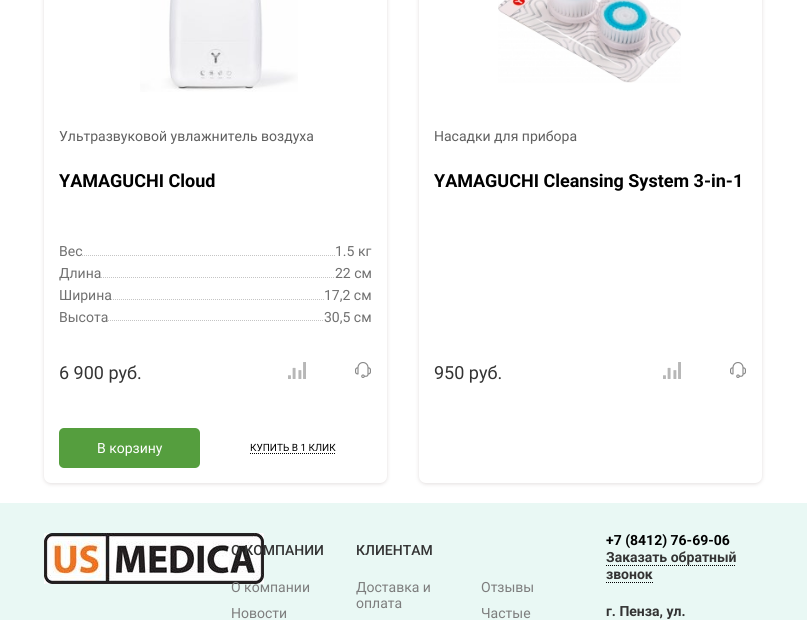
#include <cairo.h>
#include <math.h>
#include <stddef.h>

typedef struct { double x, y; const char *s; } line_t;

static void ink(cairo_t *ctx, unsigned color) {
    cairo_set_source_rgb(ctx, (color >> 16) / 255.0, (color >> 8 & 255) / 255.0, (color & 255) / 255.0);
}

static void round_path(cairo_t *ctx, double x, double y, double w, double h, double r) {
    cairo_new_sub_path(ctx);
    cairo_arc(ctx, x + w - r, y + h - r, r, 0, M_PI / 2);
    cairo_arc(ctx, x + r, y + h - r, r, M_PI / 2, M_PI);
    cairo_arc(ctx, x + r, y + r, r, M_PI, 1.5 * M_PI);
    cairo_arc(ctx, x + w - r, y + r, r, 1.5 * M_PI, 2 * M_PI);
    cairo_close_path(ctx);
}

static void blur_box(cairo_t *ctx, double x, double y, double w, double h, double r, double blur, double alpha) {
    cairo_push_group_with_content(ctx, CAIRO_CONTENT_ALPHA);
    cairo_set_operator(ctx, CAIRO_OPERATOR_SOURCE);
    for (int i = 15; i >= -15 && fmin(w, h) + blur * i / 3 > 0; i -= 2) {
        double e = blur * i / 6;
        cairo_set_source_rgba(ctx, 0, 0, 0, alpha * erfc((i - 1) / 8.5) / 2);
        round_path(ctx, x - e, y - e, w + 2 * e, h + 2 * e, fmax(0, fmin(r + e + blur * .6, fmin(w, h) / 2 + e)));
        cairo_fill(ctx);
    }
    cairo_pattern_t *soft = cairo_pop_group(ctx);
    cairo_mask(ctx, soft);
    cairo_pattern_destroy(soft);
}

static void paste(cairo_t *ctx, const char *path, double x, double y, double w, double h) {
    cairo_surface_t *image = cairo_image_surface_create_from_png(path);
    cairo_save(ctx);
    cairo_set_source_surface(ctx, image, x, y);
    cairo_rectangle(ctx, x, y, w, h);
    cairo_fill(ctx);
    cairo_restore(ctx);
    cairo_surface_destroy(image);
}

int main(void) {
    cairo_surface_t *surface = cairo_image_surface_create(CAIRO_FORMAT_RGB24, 807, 620);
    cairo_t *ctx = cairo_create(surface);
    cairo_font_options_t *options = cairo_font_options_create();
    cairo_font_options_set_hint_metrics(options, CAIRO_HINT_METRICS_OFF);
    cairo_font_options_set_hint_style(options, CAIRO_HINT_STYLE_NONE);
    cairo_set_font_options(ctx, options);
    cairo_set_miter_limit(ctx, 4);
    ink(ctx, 0xFFFFFF);
    cairo_paint(ctx);
    ink(ctx, 0xE2DEDE);
    blur_box(ctx, 44, -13, 343, 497, 7, 2, 1);
    ink(ctx, 0xFFFFFF);
    round_path(ctx, 44, -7, 343, 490, 7);
    cairo_fill(ctx);
    paste(ctx, "media/1.png", 140, 0, 158, 92);
    cairo_select_font_face(ctx, "Roboto", CAIRO_FONT_SLANT_NORMAL, CAIRO_FONT_WEIGHT_NORMAL);
    cairo_set_font_size(ctx, 14);
    ink(ctx, 0x5F5F5F);
    cairo_move_to(ctx, 59, 141);
    cairo_show_text(ctx, "Ультразвуковой увлажнитель воздуха");
    cairo_select_font_face(ctx, "Roboto", CAIRO_FONT_SLANT_NORMAL, CAIRO_FONT_WEIGHT_BOLD);
    cairo_set_font_size(ctx, 18);
    ink(ctx, 0x000000);
    cairo_move_to(ctx, 59, 187);
    cairo_show_text(ctx, "YAMAGUCHI Cloud");
    cairo_select_font_face(ctx, "Roboto", CAIRO_FONT_SLANT_NORMAL, CAIRO_FONT_WEIGHT_NORMAL);
    cairo_set_font_size(ctx, 14);
    ink(ctx, 0x707070);
    cairo_move_to(ctx, 59, 256);
    cairo_show_text(ctx, "Вес");
    cairo_save(ctx);
    cairo_rectangle(ctx, 59, 243, 313, 17);
    cairo_clip(ctx);
    cairo_new_path(ctx);
    cairo_move_to(ctx, 82, 255.5);
    cairo_line_to(ctx, 395, 255.5);
    ink(ctx, 0xC5C5C5);
    cairo_set_line_width(ctx, 1);
    cairo_set_dash(ctx, (double[]){1, 1}, 2, 0);
    cairo_stroke(ctx);
    cairo_restore(ctx);
    ink(ctx, 0xFFFFFF);
    cairo_rectangle(ctx, 336, 255, 35, 1);
    cairo_fill(ctx);
    ink(ctx, 0x707070);
    cairo_move_to(ctx, 335, 256);
    cairo_show_text(ctx, "1.5 кг");
    cairo_save(ctx);
    cairo_rectangle(ctx, 59, 265, 313, 17);
    cairo_clip(ctx);
    cairo_move_to(ctx, 59, 278);
    cairo_show_text(ctx, "Длина");
    cairo_new_path(ctx);
    cairo_move_to(ctx, 101, 277.5);
    cairo_line_to(ctx, 414, 277.5);
    ink(ctx, 0xC5C5C5);
    cairo_set_line_width(ctx, 1);
    cairo_set_dash(ctx, (double[]){1, 1}, 2, 0);
    cairo_stroke(ctx);
    cairo_restore(ctx);
    ink(ctx, 0xFFFFFF);
    cairo_rectangle(ctx, 335, 277, 37, 1);
    cairo_fill(ctx);
    ink(ctx, 0x707070);
    cairo_move_to(ctx, 335, 278);
    cairo_show_text(ctx, "22 см");
    cairo_move_to(ctx, 59, 300);
    cairo_show_text(ctx, "Ширина");
    cairo_save(ctx);
    cairo_rectangle(ctx, 59, 287, 313, 17);
    cairo_clip(ctx);
    cairo_new_path(ctx);
    cairo_move_to(ctx, 111, 299.5);
    cairo_line_to(ctx, 424, 299.5);
    ink(ctx, 0xC5C5C5);
    cairo_set_line_width(ctx, 1);
    cairo_set_dash(ctx, (double[]){1, 1}, 2, 0);
    cairo_stroke(ctx);
    cairo_restore(ctx);
    ink(ctx, 0xFFFFFF);
    cairo_rectangle(ctx, 325, 299, 47, 1);
    cairo_fill(ctx);
    ink(ctx, 0x707070);
    cairo_move_to(ctx, 324, 300);
    cairo_show_text(ctx, "17,2 см");
    cairo_move_to(ctx, 59, 322);
    cairo_show_text(ctx, "Высота");
    cairo_save(ctx);
    cairo_rectangle(ctx, 59, 309, 313, 16);
    cairo_clip(ctx);
    cairo_new_path(ctx);
    cairo_move_to(ctx, 108, 320.5);
    cairo_line_to(ctx, 421, 320.5);
    ink(ctx, 0xC5C5C5);
    cairo_set_line_width(ctx, 1);
    cairo_set_dash(ctx, (double[]){1, 1}, 2, 0);
    cairo_stroke(ctx);
    cairo_restore(ctx);
    ink(ctx, 0xFFFFFF);
    cairo_rectangle(ctx, 324, 320, 47, 1);
    cairo_fill(ctx);
    ink(ctx, 0x707070);
    cairo_move_to(ctx, 324, 322);
    cairo_show_text(ctx, "30,5 см");
    cairo_set_font_size(ctx, 18);
    ink(ctx, 0x333333);
    cairo_move_to(ctx, 59, 379);
    cairo_show_text(ctx, "6 900 руб.");
    paste(ctx, "media/2.png", 288, 362, 18, 17);
    paste(ctx, "media/3.png", 355, 362, 16, 16);
    ink(ctx, 0x559E3E);
    round_path(ctx, 59, 428, 141, 40, 5);
    cairo_fill(ctx);
    cairo_set_font_size(ctx, 14);
    ink(ctx, 0xFFFFFF);
    cairo_move_to(ctx, 97, 453);
    cairo_show_text(ctx, "В корзину");
    cairo_set_font_size(ctx, 10);
    ink(ctx, 0x000000);
    cairo_move_to(ctx, 250, 451);
    cairo_show_text(ctx, "КУПИТЬ В 1 КЛИК");
    cairo_new_path(ctx);
    cairo_move_to(ctx, 250, 453.5);
    cairo_line_to(ctx, 336, 453.5);
    cairo_set_line_width(ctx, 1);
    cairo_set_dash(ctx, (double[]){1, 1}, 2, 0);
    cairo_stroke(ctx);
    ink(ctx, 0xE2DEDE);
    blur_box(ctx, 419, -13, 343, 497, 7, 2, 1);
    ink(ctx, 0xFFFFFF);
    round_path(ctx, 419, -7, 343, 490, 7);
    cairo_fill(ctx);
    paste(ctx, "media/4.png", 498, 0, 183, 83);
    cairo_set_font_size(ctx, 14);
    ink(ctx, 0x5F5F5F);
    cairo_move_to(ctx, 434, 141);
    cairo_show_text(ctx, "Насадки для прибора");
    cairo_select_font_face(ctx, "Roboto", CAIRO_FONT_SLANT_NORMAL, CAIRO_FONT_WEIGHT_BOLD);
    cairo_set_font_size(ctx, 18);
    ink(ctx, 0x000000);
    cairo_move_to(ctx, 434, 187);
    cairo_show_text(ctx, "YAMAGUCHI Cleansing System 3-in-1");
    cairo_select_font_face(ctx, "Roboto", CAIRO_FONT_SLANT_NORMAL, CAIRO_FONT_WEIGHT_NORMAL);
    ink(ctx, 0x333333);
    cairo_move_to(ctx, 434, 379);
    cairo_show_text(ctx, "950 руб.");
    paste(ctx, "media/2.png", 663, 362, 18, 17);
    paste(ctx, "media/3.png", 730, 362, 16, 16);
    ink(ctx, 0xE9F8F4);
    cairo_rectangle(ctx, 0, 503, 807, 117);
    cairo_fill(ctx);
    paste(ctx, "media/5.png", 44, 533, 220, 51);
    cairo_select_font_face(ctx, "Roboto Medium", CAIRO_FONT_SLANT_NORMAL, CAIRO_FONT_WEIGHT_NORMAL);
    cairo_set_font_size(ctx, 14);
    ink(ctx, 0x333333);
    cairo_move_to(ctx, 231, 555);
    cairo_show_text(ctx, "О КОМПАНИИ");
    cairo_select_font_face(ctx, "Roboto", CAIRO_FONT_SLANT_NORMAL, CAIRO_FONT_WEIGHT_NORMAL);
    ink(ctx, 0x7D7D7D);
    cairo_move_to(ctx, 231, 592);
    cairo_show_text(ctx, "О компании");
    cairo_move_to(ctx, 231, 618);
    cairo_show_text(ctx, "Новости");
    cairo_select_font_face(ctx, "Roboto Medium", CAIRO_FONT_SLANT_NORMAL, CAIRO_FONT_WEIGHT_NORMAL);
    ink(ctx, 0x333333);
    cairo_move_to(ctx, 356, 555);
    cairo_show_text(ctx, "КЛИЕНТАМ");
    cairo_select_font_face(ctx, "Roboto", CAIRO_FONT_SLANT_NORMAL, CAIRO_FONT_WEIGHT_NORMAL);
    ink(ctx, 0x7D7D7D);
    {
        static const line_t items[] = {
            {356, 592, "Доставка и"},
            {356, 608, "оплата"},
            {481, 592, "Отзывы"},
            {481, 618, "Частые"},
        };
        for (size_t i = 0; i < sizeof items / sizeof *items; i++) {
            cairo_move_to(ctx, items[i].x, items[i].y);
            cairo_show_text(ctx, items[i].s);
        }
    }
    cairo_select_font_face(ctx, "Roboto", CAIRO_FONT_SLANT_NORMAL, CAIRO_FONT_WEIGHT_BOLD);
    ink(ctx, 0x000000);
    cairo_move_to(ctx, 606, 545);
    cairo_show_text(ctx, "+7 (8412) 76-69-06");
    ink(ctx, 0x333333);
    cairo_move_to(ctx, 606, 562);
    cairo_show_text(ctx, "Заказать обратный");
    cairo_new_path(ctx);
    cairo_move_to(ctx, 606, 565.5);
    cairo_line_to(ctx, 736, 565.5);
    ink(ctx, 0x000000);
    cairo_stroke(ctx);
    ink(ctx, 0x333333);
    cairo_move_to(ctx, 606, 579);
    cairo_show_text(ctx, "звонок");
    cairo_new_path(ctx);
    cairo_move_to(ctx, 606, 582.5);
    cairo_line_to(ctx, 653, 582.5);
    ink(ctx, 0x000000);
    cairo_stroke(ctx);
    ink(ctx, 0x333333);
    cairo_move_to(ctx, 606, 616);
    cairo_show_text(ctx, "г. Пенза, ул.");
    cairo_surface_write_to_png(surface, "image.png");
    cairo_font_options_destroy(options);
    cairo_destroy(ctx);
    cairo_surface_destroy(surface);
    return 0;
}
